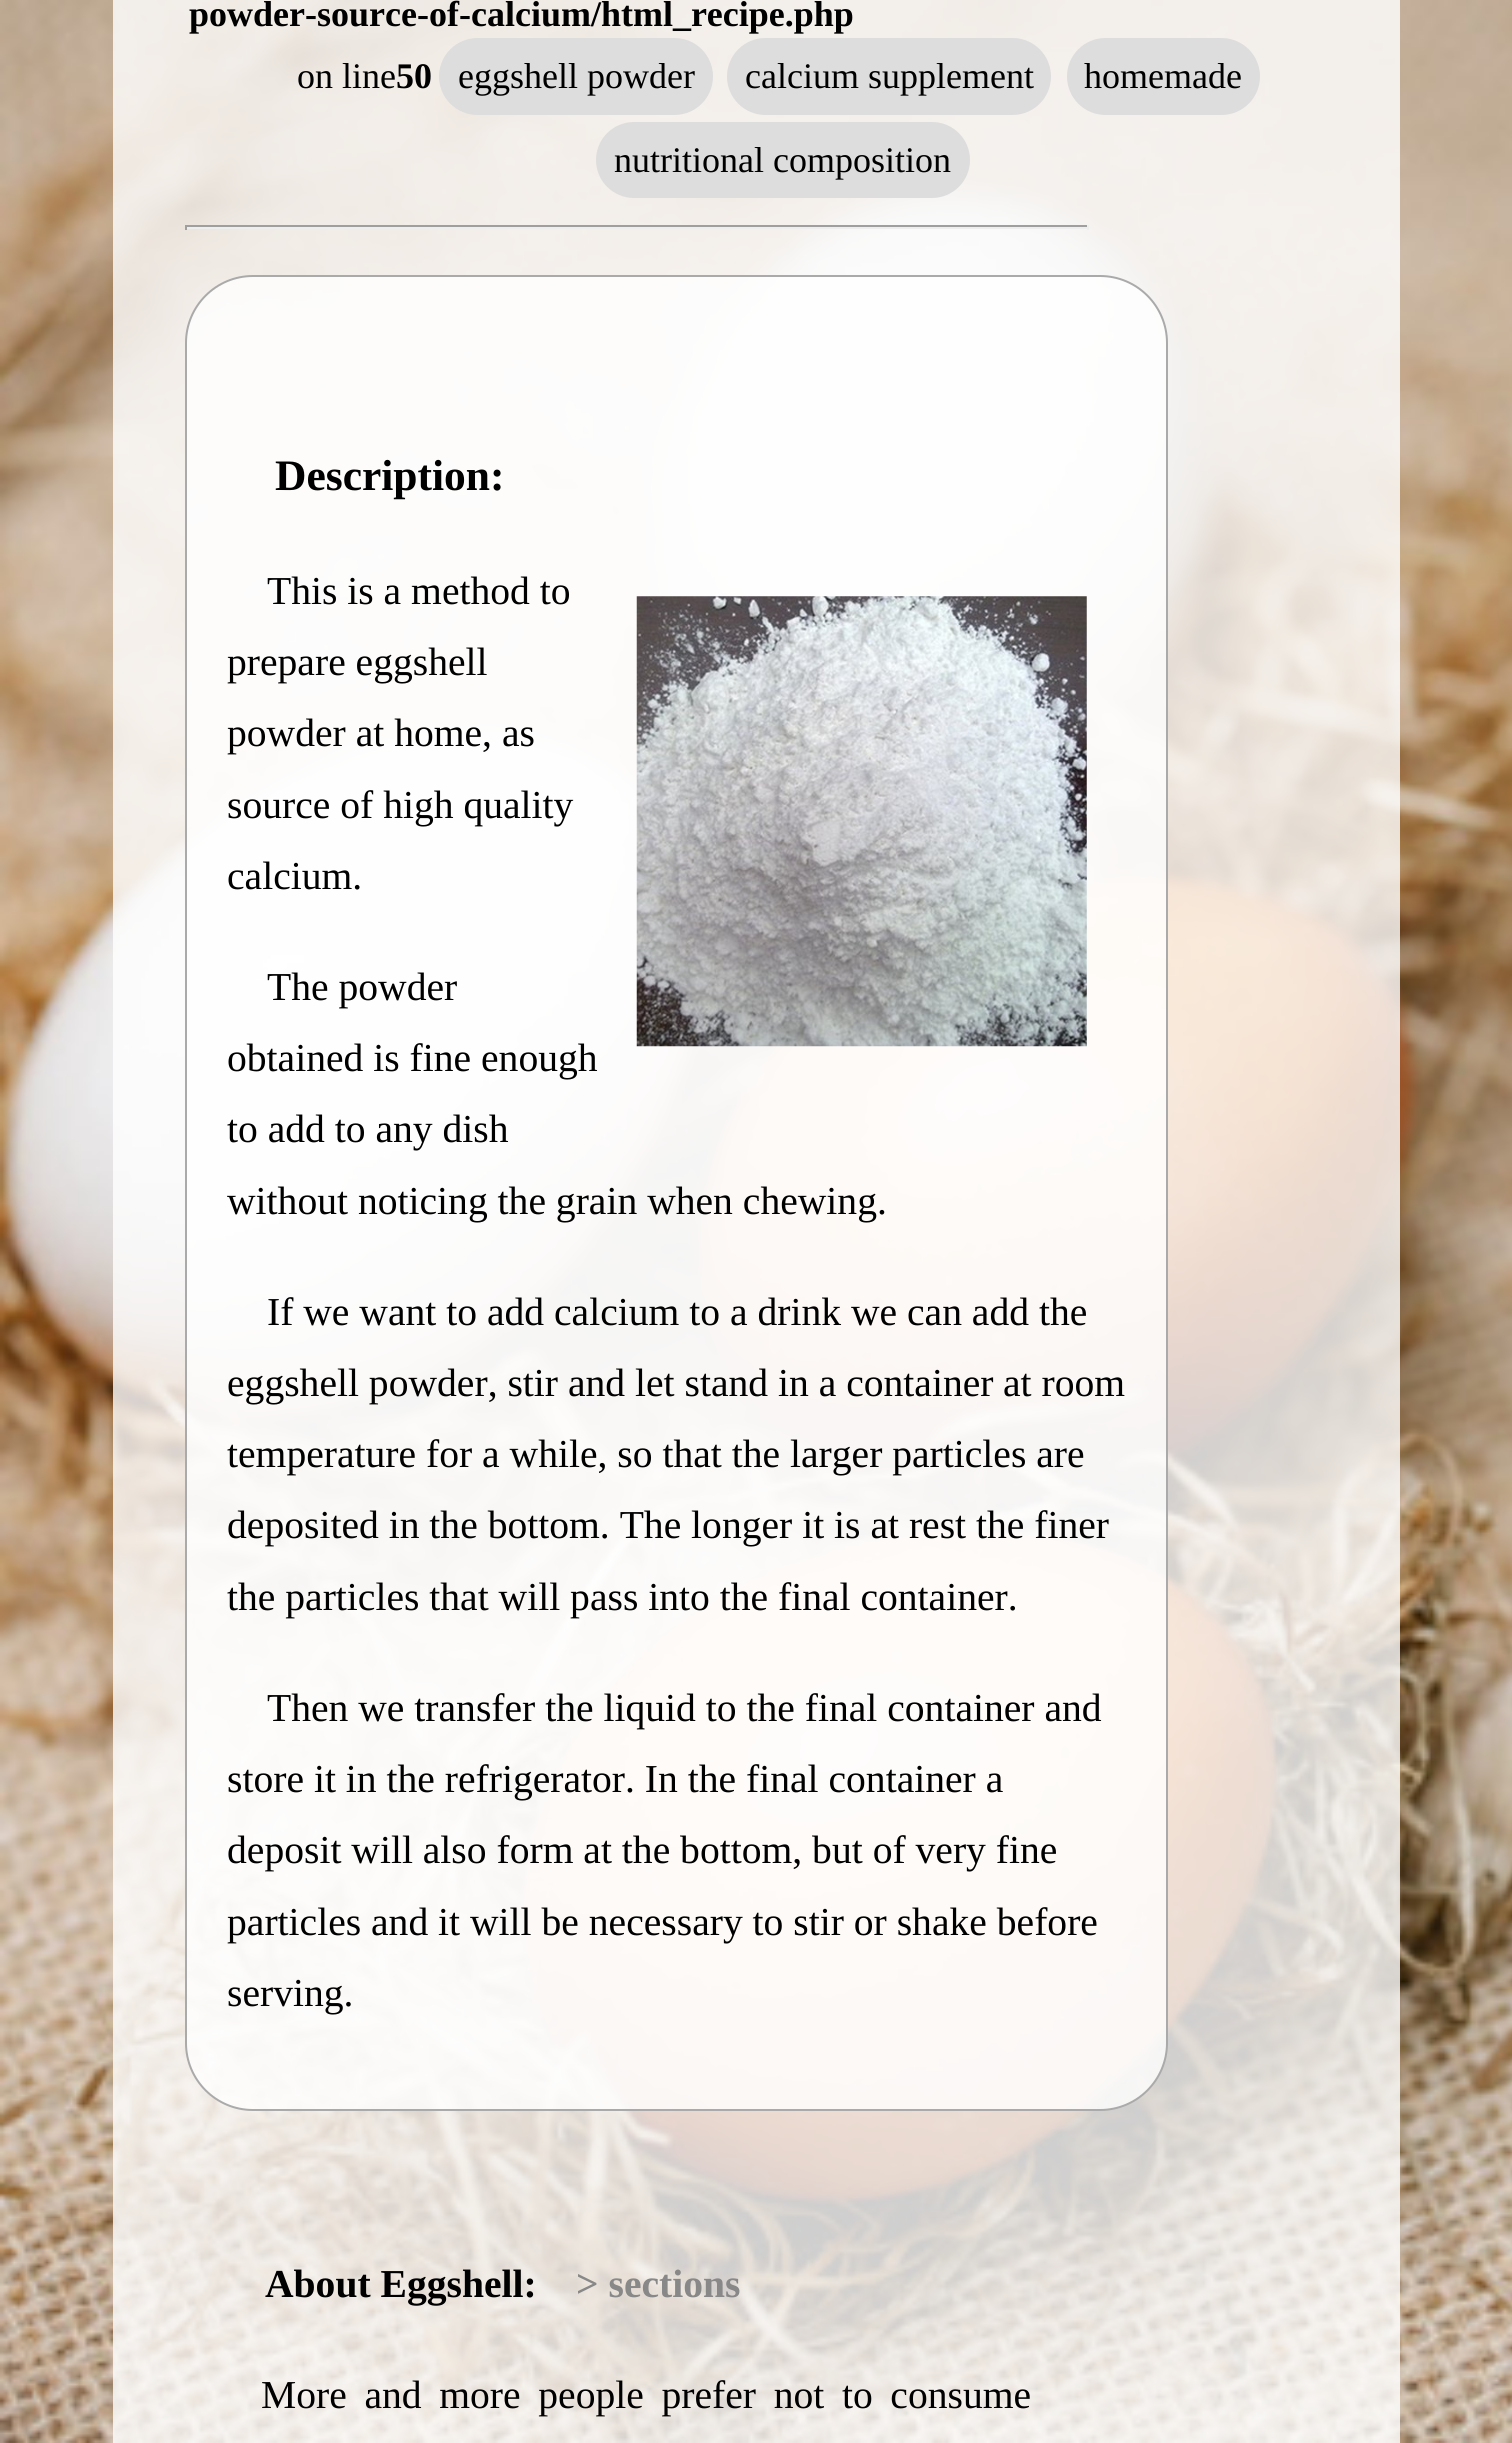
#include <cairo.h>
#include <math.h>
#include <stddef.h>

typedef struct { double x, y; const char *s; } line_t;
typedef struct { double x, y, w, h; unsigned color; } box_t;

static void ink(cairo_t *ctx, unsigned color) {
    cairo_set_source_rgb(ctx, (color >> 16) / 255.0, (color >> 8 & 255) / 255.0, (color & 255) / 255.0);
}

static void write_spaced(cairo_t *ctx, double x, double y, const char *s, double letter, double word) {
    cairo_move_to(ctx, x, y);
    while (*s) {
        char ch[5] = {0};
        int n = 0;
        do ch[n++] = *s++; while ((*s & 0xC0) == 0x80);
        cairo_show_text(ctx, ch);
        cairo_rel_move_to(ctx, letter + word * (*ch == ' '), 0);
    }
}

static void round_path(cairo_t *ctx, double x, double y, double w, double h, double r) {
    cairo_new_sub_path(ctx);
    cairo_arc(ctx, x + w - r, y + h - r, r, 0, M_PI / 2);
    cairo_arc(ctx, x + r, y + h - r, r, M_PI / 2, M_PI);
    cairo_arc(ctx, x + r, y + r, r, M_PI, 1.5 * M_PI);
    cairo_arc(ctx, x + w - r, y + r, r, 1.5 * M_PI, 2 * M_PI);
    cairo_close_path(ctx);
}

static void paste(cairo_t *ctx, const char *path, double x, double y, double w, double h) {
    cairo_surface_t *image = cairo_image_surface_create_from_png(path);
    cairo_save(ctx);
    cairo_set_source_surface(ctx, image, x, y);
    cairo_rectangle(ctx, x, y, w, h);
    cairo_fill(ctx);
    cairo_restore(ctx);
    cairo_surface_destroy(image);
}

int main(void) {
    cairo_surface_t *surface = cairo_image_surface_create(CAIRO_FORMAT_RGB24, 1512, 2443);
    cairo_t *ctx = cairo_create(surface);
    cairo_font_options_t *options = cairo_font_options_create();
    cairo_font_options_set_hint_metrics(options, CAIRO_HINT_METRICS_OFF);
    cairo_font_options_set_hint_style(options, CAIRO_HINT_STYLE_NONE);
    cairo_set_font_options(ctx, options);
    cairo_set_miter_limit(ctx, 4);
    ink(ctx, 0xFFFFFF);
    cairo_paint(ctx);
    paste(ctx, "media/1.png", 0, 0, 1512, 2443);
    cairo_set_source_rgba(ctx, 1, 1, 1, 0.8);
    cairo_rectangle(ctx, 113, 0, 1287, 2443);
    cairo_fill(ctx);
    cairo_select_font_face(ctx, "Liberation Serif", CAIRO_FONT_SLANT_NORMAL, CAIRO_FONT_WEIGHT_BOLD);
    cairo_set_font_size(ctx, 36);
    ink(ctx, 0x000000);
    cairo_move_to(ctx, 189, 26);
    cairo_show_text(ctx, "powder-source-of-calcium/html_recipe.php");
    cairo_select_font_face(ctx, "Liberation Serif", CAIRO_FONT_SLANT_NORMAL, CAIRO_FONT_WEIGHT_NORMAL);
    cairo_move_to(ctx, 297, 88);
    cairo_show_text(ctx, "on line");
    cairo_select_font_face(ctx, "Liberation Serif", CAIRO_FONT_SLANT_NORMAL, CAIRO_FONT_WEIGHT_BOLD);
    cairo_move_to(ctx, 396, 88);
    cairo_show_text(ctx, "50");
    ink(ctx, 0xDDDDDD);
    round_path(ctx, 439, 38, 274, 77, 38.5);
    cairo_fill(ctx);
    cairo_select_font_face(ctx, "Liberation Serif", CAIRO_FONT_SLANT_NORMAL, CAIRO_FONT_WEIGHT_NORMAL);
    ink(ctx, 0x000000);
    cairo_move_to(ctx, 458, 88);
    cairo_show_text(ctx, "eggshell powder");
    ink(ctx, 0xDDDDDD);
    round_path(ctx, 727, 38, 324, 77, 38.5);
    cairo_fill(ctx);
    ink(ctx, 0x000000);
    cairo_move_to(ctx, 745, 88);
    cairo_show_text(ctx, "calcium supplement");
    ink(ctx, 0xDDDDDD);
    round_path(ctx, 1067, 38, 193, 77, 38.5);
    cairo_fill(ctx);
    ink(ctx, 0x000000);
    cairo_move_to(ctx, 1084, 88);
    cairo_show_text(ctx, "homemade");
    ink(ctx, 0xDDDDDD);
    round_path(ctx, 596, 122, 374, 76, 38);
    cairo_fill(ctx);
    ink(ctx, 0x000000);
    cairo_move_to(ctx, 614, 172);
    cairo_show_text(ctx, "nutritional composition");
    {
        static const box_t items[] = {
            {185, 225, 904, 2, 0x9F9F9F},
            {1087, 225, 2, 5, 0xEEEEEE},
            {185, 227, 904, 2, 0xEEEEEE},
            {185, 225, 2, 5, 0x9F9F9F},
        };
        for (size_t i = 0; i < sizeof items / sizeof *items; i++) {
            ink(ctx, items[i].color);
            cairo_rectangle(ctx, items[i].x, items[i].y, items[i].w, items[i].h);
            cairo_fill(ctx);
        }
    }
    cairo_set_source_rgba(ctx, 1, 1, 1, 0.8);
    round_path(ctx, 186, 276, 981, 1834, 67);
    cairo_fill_preserve(ctx);
    ink(ctx, 0xAAAAAA);
    cairo_stroke(ctx);
    cairo_select_font_face(ctx, "Liberation Serif", CAIRO_FONT_SLANT_NORMAL, CAIRO_FONT_WEIGHT_BOLD);
    cairo_set_font_size(ctx, 43.5);
    ink(ctx, 0x000000);
    cairo_move_to(ctx, 275, 490);
    cairo_show_text(ctx, "Description:");
    cairo_select_font_face(ctx, "Liberation Serif", CAIRO_FONT_SLANT_NORMAL, CAIRO_FONT_WEIGHT_NORMAL);
    cairo_set_font_size(ctx, 39.6);
    {
        static const line_t items[] = {
            {267, 604, "This is a method to"},
            {227, 675, "prepare eggshell"},
            {227, 746, "powder at home, as"},
            {227, 818, "source of high quality"},
            {227, 889, "calcium."},
        };
        for (size_t i = 0; i < sizeof items / sizeof *items; i++) {
            cairo_move_to(ctx, items[i].x, items[i].y);
            cairo_show_text(ctx, items[i].s);
        }
    }
    paste(ctx, "media/2.png", 636, 596, 451, 451);
    {
        static const line_t items[] = {
            {267, 1000, "The powder"},
            {227, 1071, "obtained is fine enough"},
            {227, 1142, "to add to any dish"},
            {227, 1214, "without noticing the grain when chewing."},
            {267, 1325, "If we want to add calcium to a drink we can add the"},
            {227, 1396, "eggshell powder, stir and let stand in a container"},
            {1003, 1396, "at room"},
            {227, 1467, "temperature for a while, so that the larger particles are"},
            {227, 1538, "deposited in the bottom. The longer it is at rest the finer"},
            {227, 1610, "the particles that will pass into the final container."},
            {267, 1721, "Then we transfer the liquid to the final container and"},
            {227, 1792, "store it in the refrigerator. In the final container a"},
            {227, 1863, "deposit will also form at the bottom, but of very fine"},
            {227, 1935, "particles and it will be necessary to stir or shake before"},
            {227, 2006, "serving."},
        };
        for (size_t i = 0; i < sizeof items / sizeof *items; i++) {
            cairo_move_to(ctx, items[i].x, items[i].y);
            cairo_show_text(ctx, items[i].s);
        }
    }
    cairo_select_font_face(ctx, "Liberation Serif", CAIRO_FONT_SLANT_NORMAL, CAIRO_FONT_WEIGHT_BOLD);
    cairo_move_to(ctx, 265, 2297);
    cairo_show_text(ctx, "About Eggshell:");
    ink(ctx, 0x888888);
    cairo_move_to(ctx, 576, 2297);
    cairo_show_text(ctx, "> sections");
    cairo_select_font_face(ctx, "Liberation Serif", CAIRO_FONT_SLANT_NORMAL, CAIRO_FONT_WEIGHT_NORMAL);
    ink(ctx, 0x000000);
    write_spaced(ctx, 261, 2408, "More and more people prefer not to consume", 0, 7.75);
    cairo_surface_write_to_png(surface, "image.png");
    cairo_font_options_destroy(options);
    cairo_destroy(ctx);
    cairo_surface_destroy(surface);
    return 0;
}
